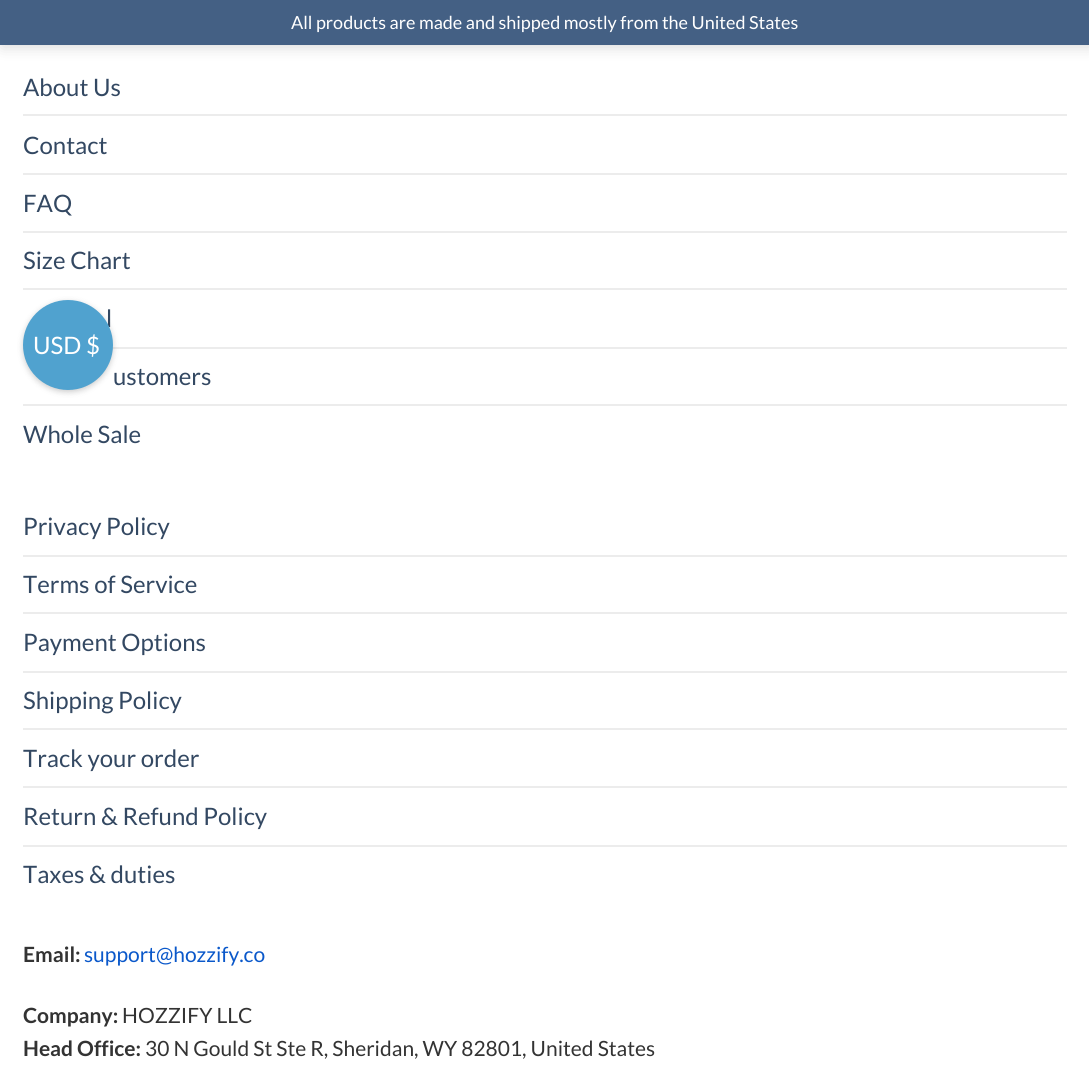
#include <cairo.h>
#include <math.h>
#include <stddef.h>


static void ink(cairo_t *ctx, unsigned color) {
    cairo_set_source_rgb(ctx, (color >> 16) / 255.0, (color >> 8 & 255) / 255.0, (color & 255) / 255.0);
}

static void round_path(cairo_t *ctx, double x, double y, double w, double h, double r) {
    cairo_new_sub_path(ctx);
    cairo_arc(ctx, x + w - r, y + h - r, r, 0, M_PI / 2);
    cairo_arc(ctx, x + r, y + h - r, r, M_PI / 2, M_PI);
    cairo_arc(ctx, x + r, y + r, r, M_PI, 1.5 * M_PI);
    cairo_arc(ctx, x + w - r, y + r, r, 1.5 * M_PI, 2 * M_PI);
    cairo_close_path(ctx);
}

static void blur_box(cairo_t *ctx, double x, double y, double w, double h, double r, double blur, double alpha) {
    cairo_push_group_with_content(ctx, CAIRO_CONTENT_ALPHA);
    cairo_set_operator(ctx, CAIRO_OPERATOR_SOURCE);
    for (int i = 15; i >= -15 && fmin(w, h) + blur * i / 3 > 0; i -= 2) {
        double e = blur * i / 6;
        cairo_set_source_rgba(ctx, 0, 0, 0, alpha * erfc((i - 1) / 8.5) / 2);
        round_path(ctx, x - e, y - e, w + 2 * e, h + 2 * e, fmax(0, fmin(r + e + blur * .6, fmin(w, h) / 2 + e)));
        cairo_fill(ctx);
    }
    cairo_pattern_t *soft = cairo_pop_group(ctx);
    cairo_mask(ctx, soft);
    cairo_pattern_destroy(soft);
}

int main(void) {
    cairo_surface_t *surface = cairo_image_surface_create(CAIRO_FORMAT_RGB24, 1089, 1070);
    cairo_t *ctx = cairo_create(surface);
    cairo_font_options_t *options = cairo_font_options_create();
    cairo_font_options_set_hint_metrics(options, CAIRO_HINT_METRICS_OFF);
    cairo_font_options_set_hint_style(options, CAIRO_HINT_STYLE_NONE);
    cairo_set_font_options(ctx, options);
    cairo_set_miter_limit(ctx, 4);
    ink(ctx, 0xFFFFFF);
    cairo_paint(ctx);
    ink(ctx, 0x000000);
    blur_box(ctx, 2, 2, 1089, 45, 0, 7.5, 0.15);
    ink(ctx, 0x446084);
    cairo_rectangle(ctx, 0, 0, 1089, 45);
    cairo_fill(ctx);
    cairo_select_font_face(ctx, "Lato", CAIRO_FONT_SLANT_NORMAL, CAIRO_FONT_WEIGHT_NORMAL);
    cairo_set_font_size(ctx, 18);
    ink(ctx, 0xFFFFFF);
    cairo_move_to(ctx, 291, 29);
    cairo_show_text(ctx, "All products are made and shipped mostly from the United States");
    cairo_set_font_size(ctx, 24);
    ink(ctx, 0x334862);
    cairo_move_to(ctx, 23, 96);
    cairo_show_text(ctx, "About Us");
    ink(ctx, 0xECECEC);
    cairo_rectangle(ctx, 23, 114, 1044, 2);
    cairo_fill(ctx);
    ink(ctx, 0x334862);
    cairo_move_to(ctx, 23, 154);
    cairo_show_text(ctx, "Contact");
    ink(ctx, 0xECECEC);
    cairo_rectangle(ctx, 23, 173, 1044, 2);
    cairo_fill(ctx);
    ink(ctx, 0x334862);
    cairo_move_to(ctx, 23, 212);
    cairo_show_text(ctx, "FAQ");
    ink(ctx, 0xECECEC);
    cairo_rectangle(ctx, 23, 231, 1044, 2);
    cairo_fill(ctx);
    ink(ctx, 0x334862);
    cairo_move_to(ctx, 23, 269);
    cairo_show_text(ctx, "Size Chart");
    ink(ctx, 0xECECEC);
    cairo_rectangle(ctx, 23, 288, 1044, 2);
    cairo_fill(ctx);
    ink(ctx, 0x334862);
    cairo_move_to(ctx, 106, 327);
    cairo_show_text(ctx, "l");
    ink(ctx, 0xECECEC);
    cairo_rectangle(ctx, 23, 347, 1044, 2);
    cairo_fill(ctx);
    ink(ctx, 0x334862);
    cairo_move_to(ctx, 113, 385);
    cairo_show_text(ctx, "ustomers");
    ink(ctx, 0xECECEC);
    cairo_rectangle(ctx, 23, 404, 1044, 2);
    cairo_fill(ctx);
    ink(ctx, 0x334862);
    cairo_move_to(ctx, 23, 443);
    cairo_show_text(ctx, "Whole Sale");
    cairo_move_to(ctx, 23, 535);
    cairo_show_text(ctx, "Privacy Policy");
    ink(ctx, 0xECECEC);
    cairo_rectangle(ctx, 23, 555, 1044, 2);
    cairo_fill(ctx);
    ink(ctx, 0x334862);
    cairo_move_to(ctx, 23, 593);
    cairo_show_text(ctx, "Terms of Service");
    ink(ctx, 0xECECEC);
    cairo_rectangle(ctx, 23, 612, 1044, 2);
    cairo_fill(ctx);
    ink(ctx, 0x334862);
    cairo_move_to(ctx, 23, 651);
    cairo_show_text(ctx, "Payment Options");
    ink(ctx, 0xECECEC);
    cairo_rectangle(ctx, 23, 671, 1044, 2);
    cairo_fill(ctx);
    ink(ctx, 0x334862);
    cairo_move_to(ctx, 23, 709);
    cairo_show_text(ctx, "Shipping Policy");
    ink(ctx, 0xECECEC);
    cairo_rectangle(ctx, 23, 728, 1044, 2);
    cairo_fill(ctx);
    ink(ctx, 0x334862);
    cairo_move_to(ctx, 23, 767);
    cairo_show_text(ctx, "Track your order");
    ink(ctx, 0xECECEC);
    cairo_rectangle(ctx, 23, 786, 1044, 2);
    cairo_fill(ctx);
    ink(ctx, 0x334862);
    cairo_move_to(ctx, 23, 825);
    cairo_show_text(ctx, "Return & Refund Policy");
    ink(ctx, 0xECECEC);
    cairo_rectangle(ctx, 23, 845, 1044, 2);
    cairo_fill(ctx);
    ink(ctx, 0x334862);
    cairo_move_to(ctx, 23, 883);
    cairo_show_text(ctx, "Taxes & duties");
    cairo_select_font_face(ctx, "Lato", CAIRO_FONT_SLANT_NORMAL, CAIRO_FONT_WEIGHT_BOLD);
    cairo_set_font_size(ctx, 21);
    ink(ctx, 0x333333);
    cairo_move_to(ctx, 23, 962);
    cairo_show_text(ctx, "Email:");
    cairo_select_font_face(ctx, "Lato", CAIRO_FONT_SLANT_NORMAL, CAIRO_FONT_WEIGHT_NORMAL);
    ink(ctx, 0x0A58CA);
    cairo_move_to(ctx, 84, 962);
    cairo_show_text(ctx, "support@hozzify.co");
    cairo_select_font_face(ctx, "Lato", CAIRO_FONT_SLANT_NORMAL, CAIRO_FONT_WEIGHT_BOLD);
    ink(ctx, 0x333333);
    cairo_move_to(ctx, 23, 1023);
    cairo_show_text(ctx, "Company:");
    cairo_select_font_face(ctx, "Lato", CAIRO_FONT_SLANT_NORMAL, CAIRO_FONT_WEIGHT_NORMAL);
    cairo_move_to(ctx, 122, 1023);
    cairo_show_text(ctx, "HOZZIFY LLC");
    cairo_select_font_face(ctx, "Lato", CAIRO_FONT_SLANT_NORMAL, CAIRO_FONT_WEIGHT_BOLD);
    cairo_move_to(ctx, 23, 1056);
    cairo_show_text(ctx, "Head Office:");
    cairo_select_font_face(ctx, "Lato", CAIRO_FONT_SLANT_NORMAL, CAIRO_FONT_WEIGHT_NORMAL);
    cairo_move_to(ctx, 145, 1056);
    cairo_show_text(ctx, "30 N Gould St Ste R, Sheridan, WY 82801, United States");
    ink(ctx, 0x000000);
    blur_box(ctx, 23, 302, 90, 90, 45, 3, 0.2);
    ink(ctx, 0x50A2CF);
    cairo_arc(ctx, 68, 345, 45, 0, 2 * M_PI);
    cairo_fill(ctx);
    cairo_set_font_size(ctx, 24);
    ink(ctx, 0xFFFFFF);
    cairo_move_to(ctx, 33, 354);
    cairo_show_text(ctx, "USD $");
    cairo_surface_write_to_png(surface, "image.png");
    cairo_font_options_destroy(options);
    cairo_destroy(ctx);
    cairo_surface_destroy(surface);
    return 0;
}
